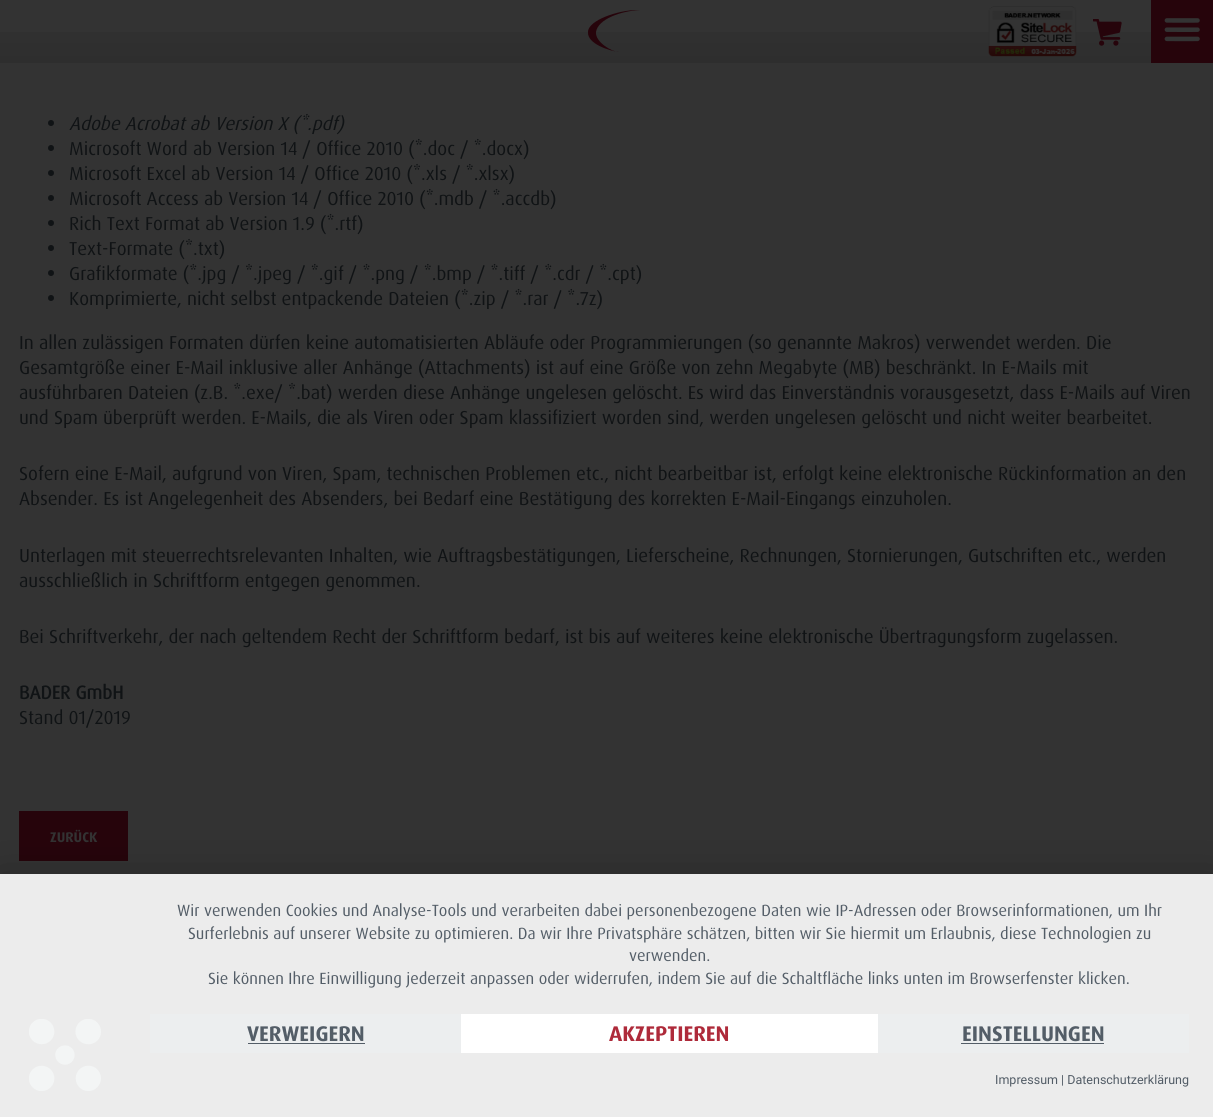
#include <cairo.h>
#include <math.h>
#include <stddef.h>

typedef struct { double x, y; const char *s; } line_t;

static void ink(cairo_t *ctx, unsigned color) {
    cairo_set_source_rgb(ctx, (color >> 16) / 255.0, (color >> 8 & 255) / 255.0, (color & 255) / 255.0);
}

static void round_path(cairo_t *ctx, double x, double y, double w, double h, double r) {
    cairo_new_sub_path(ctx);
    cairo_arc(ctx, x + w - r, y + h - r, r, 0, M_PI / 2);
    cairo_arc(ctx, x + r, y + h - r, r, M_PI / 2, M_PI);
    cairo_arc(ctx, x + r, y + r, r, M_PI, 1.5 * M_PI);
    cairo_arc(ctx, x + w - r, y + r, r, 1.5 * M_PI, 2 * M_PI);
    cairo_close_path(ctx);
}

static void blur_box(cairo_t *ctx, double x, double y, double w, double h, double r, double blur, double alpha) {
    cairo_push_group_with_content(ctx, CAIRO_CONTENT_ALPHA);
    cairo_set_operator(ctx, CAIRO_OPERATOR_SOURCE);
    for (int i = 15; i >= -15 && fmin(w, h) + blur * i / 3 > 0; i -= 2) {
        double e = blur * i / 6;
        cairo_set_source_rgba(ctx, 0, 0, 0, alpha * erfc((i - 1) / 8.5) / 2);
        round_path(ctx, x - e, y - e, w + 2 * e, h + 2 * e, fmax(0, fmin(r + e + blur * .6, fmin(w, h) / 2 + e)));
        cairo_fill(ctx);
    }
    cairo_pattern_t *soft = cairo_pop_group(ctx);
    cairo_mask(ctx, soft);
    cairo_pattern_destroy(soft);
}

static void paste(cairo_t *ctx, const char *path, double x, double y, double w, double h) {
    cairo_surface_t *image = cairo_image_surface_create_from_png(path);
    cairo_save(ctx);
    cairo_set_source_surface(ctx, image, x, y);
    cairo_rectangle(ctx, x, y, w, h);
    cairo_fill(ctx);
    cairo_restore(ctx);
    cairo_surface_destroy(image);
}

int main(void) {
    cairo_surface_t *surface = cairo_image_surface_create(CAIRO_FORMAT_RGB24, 1213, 1117);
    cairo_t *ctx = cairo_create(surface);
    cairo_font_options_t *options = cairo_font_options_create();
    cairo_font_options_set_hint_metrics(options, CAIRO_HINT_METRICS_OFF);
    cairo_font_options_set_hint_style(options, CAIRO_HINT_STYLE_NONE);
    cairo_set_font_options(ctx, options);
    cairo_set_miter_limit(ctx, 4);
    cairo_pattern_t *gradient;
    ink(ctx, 0x333333);
    cairo_paint(ctx);
    gradient = cairo_pattern_create_linear(607, 0, 607, 63);
    cairo_pattern_add_color_stop_rgba(gradient, 0, 0.2, 0.2, 0.2, 1);
    cairo_pattern_add_color_stop_rgba(gradient, 1, 0.18, 0.18, 0.18, 1);
    cairo_set_source(ctx, gradient);
    cairo_pattern_destroy(gradient);
    cairo_rectangle(ctx, 0, 32, 1151, 31);
    cairo_fill(ctx);
    ink(ctx, 0x26040B);
    cairo_new_path(ctx);
    cairo_move_to(ctx, 619, 52);
    cairo_curve_to(ctx, 610, 51, 587, 44, 588, 32);
    cairo_curve_to(ctx, 588, 20, 619, 10, 637, 10);
    cairo_line_to(ctx, 640, 10);
    cairo_curve_to(ctx, 621, 11, 598, 19, 596, 32);
    cairo_curve_to(ctx, 595, 42, 612, 52, 619, 52);
    cairo_fill(ctx);
    paste(ctx, "media/1.png", 988, 6, 89, 51);
    paste(ctx, "media/2.png", 1093, 19, 29, 27);
    cairo_rectangle(ctx, 1151, 0, 62, 63);
    cairo_fill(ctx);
    paste(ctx, "media/3.png", 1164, 18, 36, 24);
    ink(ctx, 0x101315);
    cairo_arc(ctx, 51, 123, 3, 0, 2 * M_PI);
    cairo_fill(ctx);
    cairo_select_font_face(ctx, "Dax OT", CAIRO_FONT_SLANT_ITALIC, CAIRO_FONT_WEIGHT_NORMAL);
    cairo_set_font_size(ctx, 18.75);
    cairo_move_to(ctx, 69, 130);
    cairo_show_text(ctx, "Adobe Acrobat ab Version X (*.pdf)");
    cairo_new_path(ctx);
    cairo_arc(ctx, 51, 148, 3, 0, 2 * M_PI);
    cairo_fill(ctx);
    cairo_select_font_face(ctx, "Dax OT", CAIRO_FONT_SLANT_NORMAL, CAIRO_FONT_WEIGHT_NORMAL);
    cairo_move_to(ctx, 69, 155);
    cairo_show_text(ctx, "Microsoft Word ab Version 14 / Office 2010 (*.doc / *.docx)");
    cairo_new_path(ctx);
    cairo_arc(ctx, 51, 173, 3, 0, 2 * M_PI);
    cairo_fill(ctx);
    cairo_move_to(ctx, 69, 180);
    cairo_show_text(ctx, "Microsoft Excel ab Version 14 / Office 2010 (*.xls / *.xlsx)");
    cairo_new_path(ctx);
    cairo_arc(ctx, 51, 198, 3, 0, 2 * M_PI);
    cairo_fill(ctx);
    cairo_move_to(ctx, 69, 205);
    cairo_show_text(ctx, "Microsoft Access ab Version 14 / Office 2010 (*.mdb / *.accdb)");
    cairo_new_path(ctx);
    cairo_arc(ctx, 51, 223, 3, 0, 2 * M_PI);
    cairo_fill(ctx);
    cairo_move_to(ctx, 69, 230);
    cairo_show_text(ctx, "Rich Text Format ab Version 1.9 (*.rtf)");
    cairo_new_path(ctx);
    cairo_arc(ctx, 51, 248, 3, 0, 2 * M_PI);
    cairo_fill(ctx);
    cairo_move_to(ctx, 69, 255);
    cairo_show_text(ctx, "Text-Formate (*.txt)");
    cairo_new_path(ctx);
    cairo_arc(ctx, 51, 273, 3, 0, 2 * M_PI);
    cairo_fill(ctx);
    cairo_move_to(ctx, 69, 280);
    cairo_show_text(ctx, "Grafikformate (*.jpg / *.jpeg / *.gif / *.png / *.bmp / *.tiff / *.cdr / *.cpt)");
    cairo_new_path(ctx);
    cairo_arc(ctx, 51, 298, 3, 0, 2 * M_PI);
    cairo_fill(ctx);
    {
        static const line_t items[] = {
            {69, 305, "Komprimierte, nicht selbst entpackende Dateien (*.zip / *.rar / *.7z)"},
            {19, 349, "In allen zulässigen Formaten dürfen keine automatisierten Abläufe oder Programmierungen (so genannte Makros) verwendet werden. Die"},
            {19, 374, "Gesamtgröße einer E-Mail inklusive aller Anhänge (Attachments) ist auf eine Größe von zehn Megabyte (MB) beschränkt. In E-Mails mit"},
            {19, 399, "ausführbaren Dateien (z.B. *.exe/ *.bat) werden diese Anhänge ungelesen gelöscht. Es wird das Einverständnis vorausgesetzt, dass E-Mails auf Viren"},
            {19, 424, "und Spam überprüft werden. E-Mails, die als Viren oder Spam klassifiziert worden sind, werden ungelesen gelöscht und nicht weiter bearbeitet."},
            {19, 480, "Sofern eine E-Mail, aufgrund von Viren, Spam, technischen Problemen etc., nicht bearbeitbar ist, erfolgt keine elektronische Rückinformation an den"},
            {19, 505, "Absender. Es ist Angelegenheit des Absenders, bei Bedarf eine Bestätigung des korrekten E-Mail-Eingangs einzuholen."},
            {19, 562, "Unterlagen mit steuerrechtsrelevanten Inhalten, wie Auftragsbestätigungen, Lieferscheine, Rechnungen, Stornierungen, Gutschriften etc., werden"},
            {19, 587, "ausschließlich in Schriftform entgegen genommen."},
            {19, 643, "Bei Schriftverkehr, der nach geltendem Recht der Schriftform bedarf, ist bis auf weiteres keine elektronische Übertragungsform zugelassen."},
        };
        for (size_t i = 0; i < sizeof items / sizeof *items; i++) {
            cairo_move_to(ctx, items[i].x, items[i].y);
            cairo_show_text(ctx, items[i].s);
        }
    }
    cairo_select_font_face(ctx, "Dax OT", CAIRO_FONT_SLANT_NORMAL, CAIRO_FONT_WEIGHT_BOLD);
    cairo_move_to(ctx, 19, 699);
    cairo_show_text(ctx, "BADER GmbH");
    cairo_select_font_face(ctx, "Dax OT", CAIRO_FONT_SLANT_NORMAL, CAIRO_FONT_WEIGHT_NORMAL);
    cairo_move_to(ctx, 19, 724);
    cairo_show_text(ctx, "Stand 01/2019");
    ink(ctx, 0x26040B);
    cairo_rectangle(ctx, 19, 811, 109, 50);
    cairo_fill(ctx);
    cairo_select_font_face(ctx, "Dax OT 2", CAIRO_FONT_SLANT_NORMAL, CAIRO_FONT_WEIGHT_BOLD);
    cairo_set_font_size(ctx, 14);
    ink(ctx, 0x333333);
    cairo_move_to(ctx, 50, 842);
    cairo_show_text(ctx, "ZURÜCK");
    ink(ctx, 0x000000);
    blur_box(ctx, 0, 881, 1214, 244, 0, 22.5, 0.3);
    ink(ctx, 0xECECEC);
    cairo_rectangle(ctx, 0, 874, 1213, 243);
    cairo_fill(ctx);
    paste(ctx, "media/4.png", 29, 1019, 72, 72);
    cairo_select_font_face(ctx, "Dax OT", CAIRO_FONT_SLANT_NORMAL, CAIRO_FONT_WEIGHT_NORMAL);
    cairo_set_font_size(ctx, 16.25);
    ink(ctx, 0x535D67);
    {
        static const line_t items[] = {
            {177, 916, "Wir verwenden Cookies und Analyse-Tools und verarbeiten dabei personenbezogene Daten wie IP-Adressen oder Browserinformationen, um Ihr"},
            {188, 939, "Surferlebnis auf unserer Website zu optimieren. Da wir Ihre Privatsphäre schätzen, bitten wir Sie hiermit um Erlaubnis, diese Technologien zu"},
            {629, 961, "verwenden."},
            {208, 984, "Sie können Ihre Einwilligung jederzeit anpassen oder widerrufen, indem Sie auf die Schaltfläche links unten im Browserfenster klicken."},
        };
        for (size_t i = 0; i < sizeof items / sizeof *items; i++) {
            cairo_move_to(ctx, items[i].x, items[i].y);
            cairo_show_text(ctx, items[i].s);
        }
    }
    ink(ctx, 0xECEEEF);
    cairo_rectangle(ctx, 150, 1014, 311, 39);
    cairo_fill(ctx);
    cairo_select_font_face(ctx, "Dax OT 2", CAIRO_FONT_SLANT_NORMAL, CAIRO_FONT_WEIGHT_BOLD);
    cairo_set_font_size(ctx, 21.25);
    ink(ctx, 0x535D67);
    cairo_move_to(ctx, 247, 1041);
    cairo_show_text(ctx, "VERWEIGERN");
    cairo_rectangle(ctx, 248, 1043, 117, 1);
    cairo_fill(ctx);
    ink(ctx, 0xFFFFFF);
    cairo_rectangle(ctx, 461, 1014, 417, 39);
    cairo_fill(ctx);
    ink(ctx, 0xAE2A3A);
    cairo_move_to(ctx, 609, 1041);
    cairo_show_text(ctx, "AKZEPTIEREN");
    ink(ctx, 0xECEEEF);
    cairo_rectangle(ctx, 878, 1014, 311, 39);
    cairo_fill(ctx);
    ink(ctx, 0x535D67);
    cairo_move_to(ctx, 962, 1041);
    cairo_show_text(ctx, "EINSTELLUNGEN");
    cairo_rectangle(ctx, 961, 1043, 143, 1);
    cairo_fill(ctx);
    cairo_select_font_face(ctx, "Roboto", CAIRO_FONT_SLANT_NORMAL, CAIRO_FONT_WEIGHT_NORMAL);
    cairo_set_font_size(ctx, 12.5);
    cairo_move_to(ctx, 995, 1084);
    cairo_show_text(ctx, "Impressum | Datenschutzerklärung");
    cairo_surface_write_to_png(surface, "image.png");
    cairo_font_options_destroy(options);
    cairo_destroy(ctx);
    cairo_surface_destroy(surface);
    return 0;
}
